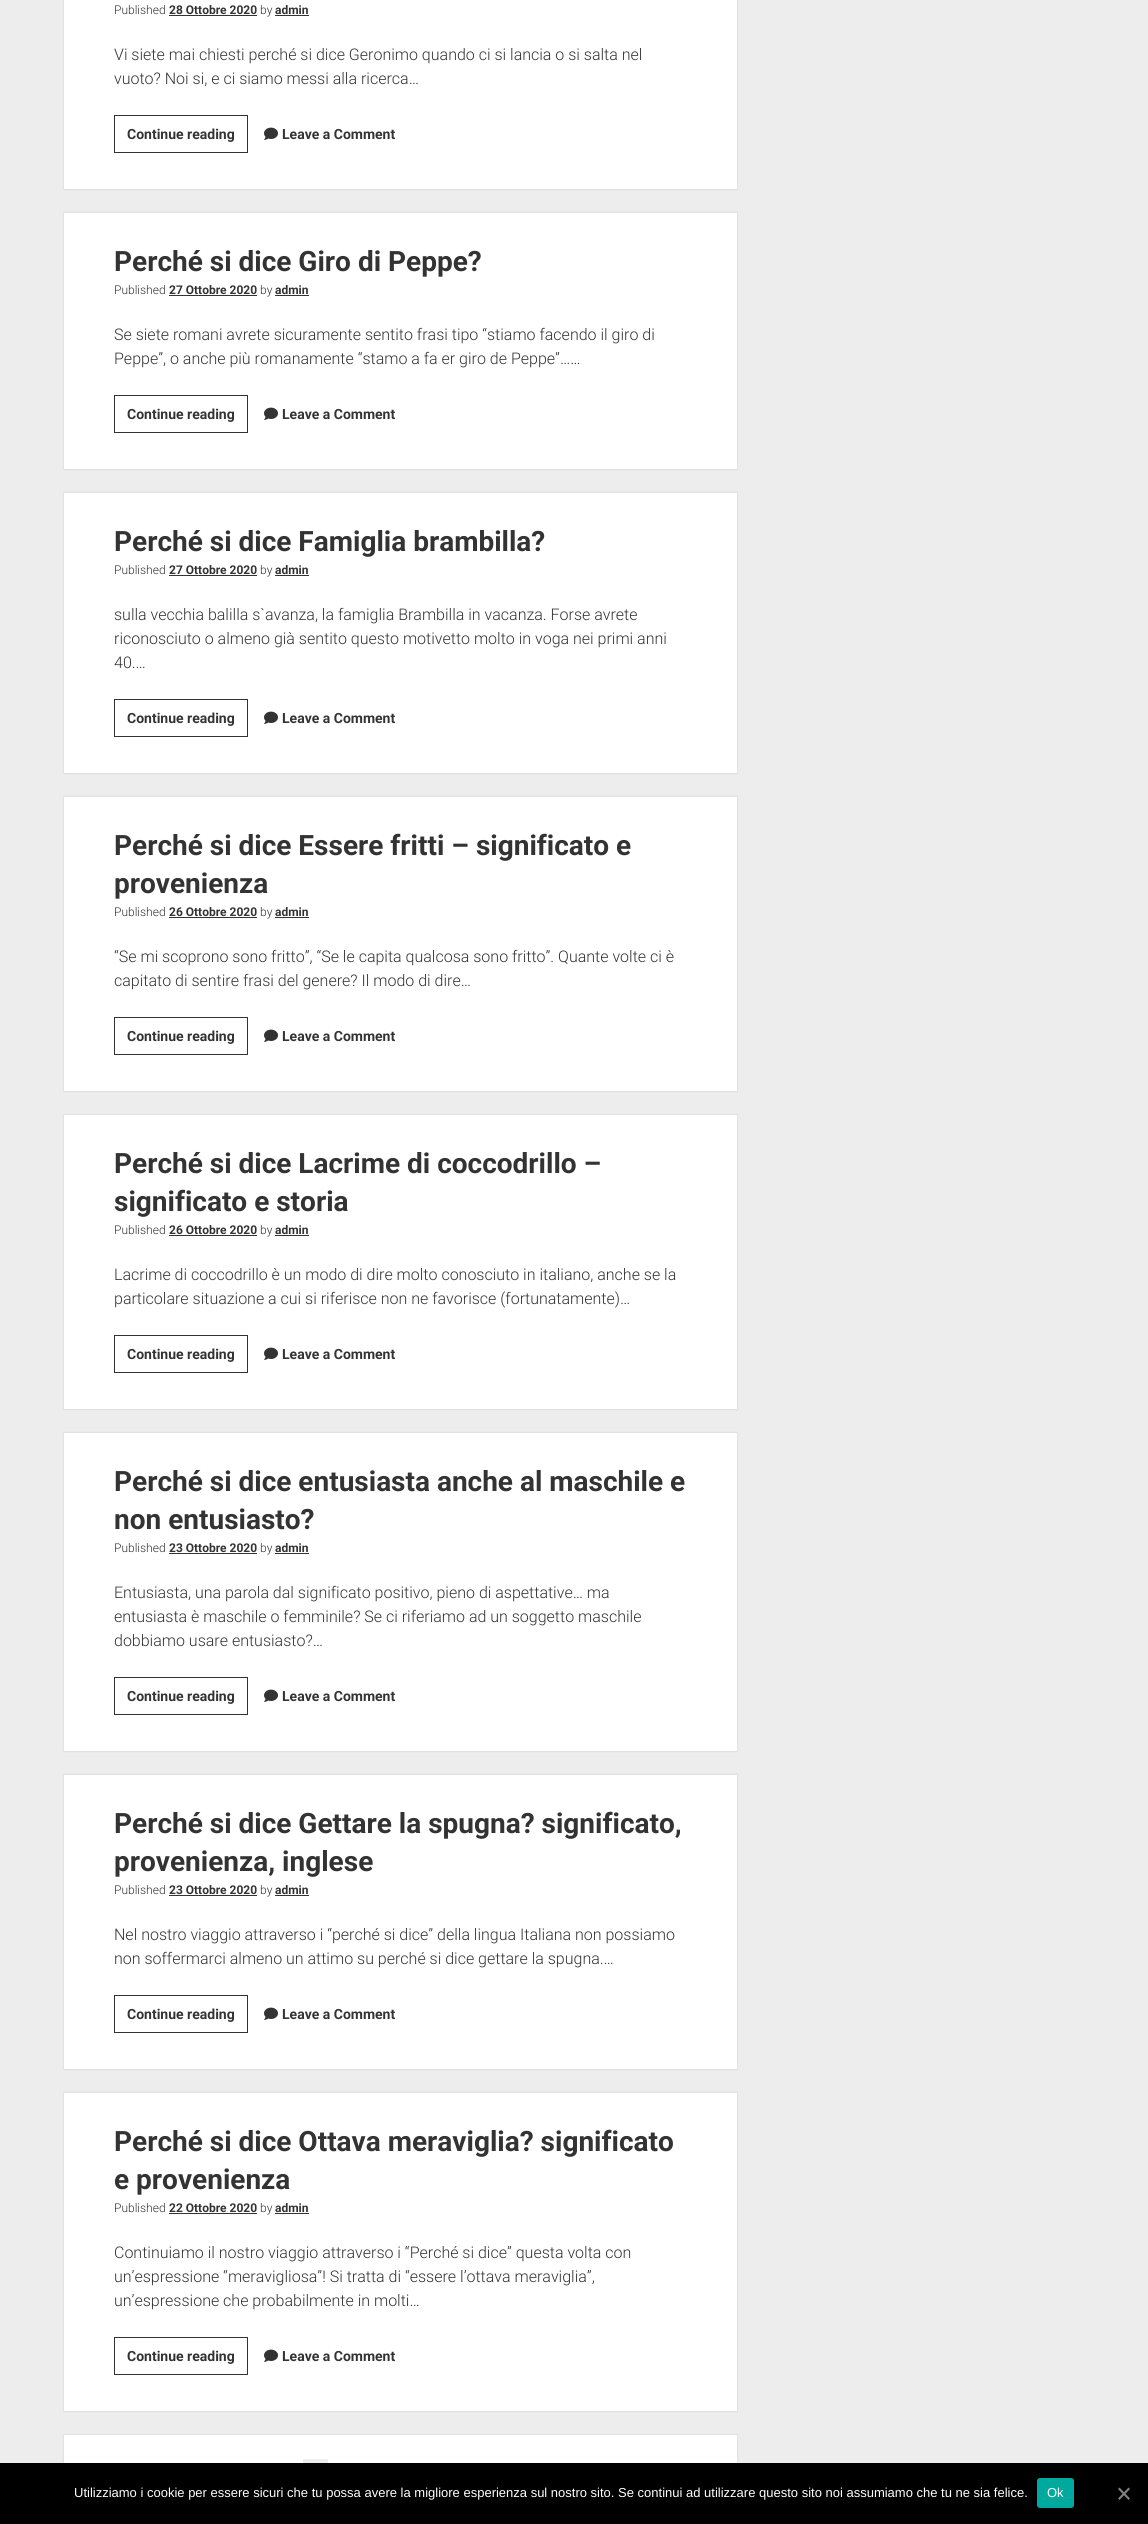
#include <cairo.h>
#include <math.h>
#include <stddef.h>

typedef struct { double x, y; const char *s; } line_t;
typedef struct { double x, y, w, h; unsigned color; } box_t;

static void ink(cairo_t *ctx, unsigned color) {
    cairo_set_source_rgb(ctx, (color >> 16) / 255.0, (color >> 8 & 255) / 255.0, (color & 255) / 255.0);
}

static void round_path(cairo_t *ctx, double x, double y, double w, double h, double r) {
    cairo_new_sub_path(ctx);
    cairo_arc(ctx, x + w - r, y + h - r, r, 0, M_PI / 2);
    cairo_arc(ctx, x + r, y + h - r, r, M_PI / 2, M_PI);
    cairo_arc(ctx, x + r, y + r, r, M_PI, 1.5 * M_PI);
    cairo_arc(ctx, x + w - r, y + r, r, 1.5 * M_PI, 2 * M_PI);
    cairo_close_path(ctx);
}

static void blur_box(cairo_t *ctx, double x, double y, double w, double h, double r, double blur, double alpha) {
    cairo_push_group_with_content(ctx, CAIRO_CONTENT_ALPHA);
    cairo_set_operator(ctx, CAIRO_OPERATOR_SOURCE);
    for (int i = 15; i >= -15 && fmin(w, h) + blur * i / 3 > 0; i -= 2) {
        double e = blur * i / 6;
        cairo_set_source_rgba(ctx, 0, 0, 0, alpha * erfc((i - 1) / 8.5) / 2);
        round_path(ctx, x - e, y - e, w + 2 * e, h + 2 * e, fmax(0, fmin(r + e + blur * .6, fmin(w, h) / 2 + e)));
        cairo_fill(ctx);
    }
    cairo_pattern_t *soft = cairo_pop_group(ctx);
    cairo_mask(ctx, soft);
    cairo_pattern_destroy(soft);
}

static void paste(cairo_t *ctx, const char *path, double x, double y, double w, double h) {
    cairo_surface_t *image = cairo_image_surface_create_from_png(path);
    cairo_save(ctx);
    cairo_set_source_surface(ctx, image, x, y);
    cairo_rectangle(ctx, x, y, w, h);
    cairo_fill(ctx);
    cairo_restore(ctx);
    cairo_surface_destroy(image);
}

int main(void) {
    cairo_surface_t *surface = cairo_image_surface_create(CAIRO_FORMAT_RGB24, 1148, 2524);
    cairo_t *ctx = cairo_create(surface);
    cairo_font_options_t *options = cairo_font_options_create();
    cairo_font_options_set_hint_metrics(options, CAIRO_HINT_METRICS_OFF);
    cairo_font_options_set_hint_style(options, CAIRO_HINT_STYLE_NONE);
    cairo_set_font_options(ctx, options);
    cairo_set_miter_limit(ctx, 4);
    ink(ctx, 0xEDEDED);
    cairo_paint(ctx);
    ink(ctx, 0x3A3A3A);
    blur_box(ctx, 64, -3, 673, 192, 0, 1, 0.2);
    ink(ctx, 0xFFFFFF);
    cairo_rectangle(ctx, 64, 0, 673, 189);
    cairo_fill(ctx);
    cairo_select_font_face(ctx, "Roboto Light", CAIRO_FONT_SLANT_NORMAL, CAIRO_FONT_WEIGHT_NORMAL);
    cairo_set_font_size(ctx, 12);
    ink(ctx, 0x333333);
    cairo_move_to(ctx, 114, 14);
    cairo_show_text(ctx, "Published");
    cairo_select_font_face(ctx, "Roboto", CAIRO_FONT_SLANT_NORMAL, CAIRO_FONT_WEIGHT_BOLD);
    cairo_move_to(ctx, 169, 14);
    cairo_show_text(ctx, "28 Ottobre 2020");
    cairo_rectangle(ctx, 169, 15, 88, 1);
    cairo_fill(ctx);
    cairo_select_font_face(ctx, "Roboto Light", CAIRO_FONT_SLANT_NORMAL, CAIRO_FONT_WEIGHT_NORMAL);
    cairo_move_to(ctx, 260, 14);
    cairo_show_text(ctx, "by");
    cairo_select_font_face(ctx, "Roboto", CAIRO_FONT_SLANT_NORMAL, CAIRO_FONT_WEIGHT_BOLD);
    cairo_move_to(ctx, 275, 14);
    cairo_show_text(ctx, "admin");
    cairo_rectangle(ctx, 275, 15, 34, 1);
    cairo_fill(ctx);
    cairo_select_font_face(ctx, "Roboto Light", CAIRO_FONT_SLANT_NORMAL, CAIRO_FONT_WEIGHT_NORMAL);
    cairo_set_font_size(ctx, 16);
    cairo_move_to(ctx, 114, 60);
    cairo_show_text(ctx, "Vi siete mai chiesti perché si dice Geronimo quando ci si lancia o si salta nel");
    cairo_move_to(ctx, 114, 84);
    cairo_show_text(ctx, "vuoto? Noi si, e ci siamo messi alla ricerca…");
    cairo_rectangle(ctx, 114.5, 115.5, 133, 37);
    cairo_set_line_width(ctx, 1);
    cairo_stroke(ctx);
    cairo_select_font_face(ctx, "Roboto", CAIRO_FONT_SLANT_NORMAL, CAIRO_FONT_WEIGHT_BOLD);
    cairo_set_font_size(ctx, 14);
    cairo_move_to(ctx, 127, 139);
    cairo_show_text(ctx, "Continue reading");
    paste(ctx, "media/1.png", 264, 127, 14, 13);
    cairo_move_to(ctx, 282, 139);
    cairo_show_text(ctx, "Leave a Comment");
    ink(ctx, 0x3A3A3A);
    blur_box(ctx, 64, 213, 673, 256, 0, 1, 0.2);
    ink(ctx, 0xFFFFFF);
    cairo_rectangle(ctx, 64, 213, 673, 256);
    cairo_fill(ctx);
    cairo_set_font_size(ctx, 28);
    ink(ctx, 0x333333);
    cairo_move_to(ctx, 114, 271);
    cairo_show_text(ctx, "Perché si dice Giro di Peppe?");
    cairo_select_font_face(ctx, "Roboto Light", CAIRO_FONT_SLANT_NORMAL, CAIRO_FONT_WEIGHT_NORMAL);
    cairo_set_font_size(ctx, 12);
    cairo_move_to(ctx, 114, 294);
    cairo_show_text(ctx, "Published");
    cairo_select_font_face(ctx, "Roboto", CAIRO_FONT_SLANT_NORMAL, CAIRO_FONT_WEIGHT_BOLD);
    cairo_move_to(ctx, 169, 294);
    cairo_show_text(ctx, "27 Ottobre 2020");
    cairo_rectangle(ctx, 169, 295, 88, 1);
    cairo_fill(ctx);
    cairo_select_font_face(ctx, "Roboto Light", CAIRO_FONT_SLANT_NORMAL, CAIRO_FONT_WEIGHT_NORMAL);
    cairo_move_to(ctx, 260, 294);
    cairo_show_text(ctx, "by");
    cairo_select_font_face(ctx, "Roboto", CAIRO_FONT_SLANT_NORMAL, CAIRO_FONT_WEIGHT_BOLD);
    cairo_move_to(ctx, 275, 294);
    cairo_show_text(ctx, "admin");
    cairo_rectangle(ctx, 275, 295, 34, 1);
    cairo_fill(ctx);
    cairo_select_font_face(ctx, "Roboto Light", CAIRO_FONT_SLANT_NORMAL, CAIRO_FONT_WEIGHT_NORMAL);
    cairo_set_font_size(ctx, 16);
    cairo_move_to(ctx, 114, 340);
    cairo_show_text(ctx, "Se siete romani avrete sicuramente sentito frasi tipo “stiamo facendo il giro di");
    cairo_move_to(ctx, 114, 364);
    cairo_show_text(ctx, "Peppe”, o anche più romanamente “stamo a fa er giro de Peppe”……");
    cairo_rectangle(ctx, 114.5, 395.5, 133, 37);
    cairo_stroke(ctx);
    cairo_select_font_face(ctx, "Roboto", CAIRO_FONT_SLANT_NORMAL, CAIRO_FONT_WEIGHT_BOLD);
    cairo_set_font_size(ctx, 14);
    cairo_move_to(ctx, 127, 419);
    cairo_show_text(ctx, "Continue reading");
    paste(ctx, "media/1.png", 264, 407, 14, 13);
    cairo_move_to(ctx, 282, 419);
    cairo_show_text(ctx, "Leave a Comment");
    ink(ctx, 0x3A3A3A);
    blur_box(ctx, 64, 493, 673, 280, 0, 1, 0.2);
    ink(ctx, 0xFFFFFF);
    cairo_rectangle(ctx, 64, 493, 673, 280);
    cairo_fill(ctx);
    cairo_set_font_size(ctx, 28);
    ink(ctx, 0x333333);
    cairo_move_to(ctx, 114, 551);
    cairo_show_text(ctx, "Perché si dice Famiglia brambilla?");
    cairo_select_font_face(ctx, "Roboto Light", CAIRO_FONT_SLANT_NORMAL, CAIRO_FONT_WEIGHT_NORMAL);
    cairo_set_font_size(ctx, 12);
    cairo_move_to(ctx, 114, 574);
    cairo_show_text(ctx, "Published");
    cairo_select_font_face(ctx, "Roboto", CAIRO_FONT_SLANT_NORMAL, CAIRO_FONT_WEIGHT_BOLD);
    cairo_move_to(ctx, 169, 574);
    cairo_show_text(ctx, "27 Ottobre 2020");
    cairo_rectangle(ctx, 169, 575, 88, 1);
    cairo_fill(ctx);
    cairo_select_font_face(ctx, "Roboto Light", CAIRO_FONT_SLANT_NORMAL, CAIRO_FONT_WEIGHT_NORMAL);
    cairo_move_to(ctx, 260, 574);
    cairo_show_text(ctx, "by");
    cairo_select_font_face(ctx, "Roboto", CAIRO_FONT_SLANT_NORMAL, CAIRO_FONT_WEIGHT_BOLD);
    cairo_move_to(ctx, 275, 574);
    cairo_show_text(ctx, "admin");
    cairo_rectangle(ctx, 275, 575, 34, 1);
    cairo_fill(ctx);
    cairo_select_font_face(ctx, "Roboto Light", CAIRO_FONT_SLANT_NORMAL, CAIRO_FONT_WEIGHT_NORMAL);
    cairo_set_font_size(ctx, 16);
    {
        static const line_t items[] = {
            {114, 620, "sulla vecchia balilla s`avanza, la famiglia Brambilla in vacanza. Forse avrete"},
            {114, 644, "riconosciuto o almeno già sentito questo motivetto molto in voga nei primi anni"},
            {114, 668, "40.…"},
        };
        for (size_t i = 0; i < sizeof items / sizeof *items; i++) {
            cairo_move_to(ctx, items[i].x, items[i].y);
            cairo_show_text(ctx, items[i].s);
        }
    }
    cairo_rectangle(ctx, 114.5, 699.5, 133, 37);
    cairo_stroke(ctx);
    cairo_select_font_face(ctx, "Roboto", CAIRO_FONT_SLANT_NORMAL, CAIRO_FONT_WEIGHT_BOLD);
    cairo_set_font_size(ctx, 14);
    cairo_move_to(ctx, 127, 723);
    cairo_show_text(ctx, "Continue reading");
    paste(ctx, "media/1.png", 264, 711, 14, 13);
    cairo_move_to(ctx, 282, 723);
    cairo_show_text(ctx, "Leave a Comment");
    ink(ctx, 0x3A3A3A);
    blur_box(ctx, 64, 797, 673, 294, 0, 1, 0.2);
    ink(ctx, 0xFFFFFF);
    cairo_rectangle(ctx, 64, 797, 673, 294);
    cairo_fill(ctx);
    cairo_set_font_size(ctx, 28);
    ink(ctx, 0x333333);
    cairo_move_to(ctx, 114, 855);
    cairo_show_text(ctx, "Perché si dice Essere fritti – significato e");
    cairo_move_to(ctx, 114, 893);
    cairo_show_text(ctx, "provenienza");
    cairo_select_font_face(ctx, "Roboto Light", CAIRO_FONT_SLANT_NORMAL, CAIRO_FONT_WEIGHT_NORMAL);
    cairo_set_font_size(ctx, 12);
    cairo_move_to(ctx, 114, 916);
    cairo_show_text(ctx, "Published");
    cairo_select_font_face(ctx, "Roboto", CAIRO_FONT_SLANT_NORMAL, CAIRO_FONT_WEIGHT_BOLD);
    cairo_move_to(ctx, 169, 916);
    cairo_show_text(ctx, "26 Ottobre 2020");
    cairo_rectangle(ctx, 169, 917, 88, 1);
    cairo_fill(ctx);
    cairo_select_font_face(ctx, "Roboto Light", CAIRO_FONT_SLANT_NORMAL, CAIRO_FONT_WEIGHT_NORMAL);
    cairo_move_to(ctx, 260, 916);
    cairo_show_text(ctx, "by");
    cairo_select_font_face(ctx, "Roboto", CAIRO_FONT_SLANT_NORMAL, CAIRO_FONT_WEIGHT_BOLD);
    cairo_move_to(ctx, 275, 916);
    cairo_show_text(ctx, "admin");
    cairo_rectangle(ctx, 275, 917, 34, 1);
    cairo_fill(ctx);
    cairo_select_font_face(ctx, "Roboto Light", CAIRO_FONT_SLANT_NORMAL, CAIRO_FONT_WEIGHT_NORMAL);
    cairo_set_font_size(ctx, 16);
    cairo_move_to(ctx, 114, 962);
    cairo_show_text(ctx, "“Se mi scoprono sono fritto”, “Se le capita qualcosa sono fritto”. Quante volte ci è");
    cairo_move_to(ctx, 114, 986);
    cairo_show_text(ctx, "capitato di sentire frasi del genere? Il modo di dire…");
    cairo_rectangle(ctx, 114.5, 1017.5, 133, 37);
    cairo_stroke(ctx);
    cairo_select_font_face(ctx, "Roboto", CAIRO_FONT_SLANT_NORMAL, CAIRO_FONT_WEIGHT_BOLD);
    cairo_set_font_size(ctx, 14);
    cairo_move_to(ctx, 127, 1041);
    cairo_show_text(ctx, "Continue reading");
    paste(ctx, "media/1.png", 264, 1029, 14, 13);
    cairo_move_to(ctx, 282, 1041);
    cairo_show_text(ctx, "Leave a Comment");
    ink(ctx, 0x3A3A3A);
    blur_box(ctx, 64, 1115, 673, 294, 0, 1, 0.2);
    ink(ctx, 0xFFFFFF);
    cairo_rectangle(ctx, 64, 1115, 673, 294);
    cairo_fill(ctx);
    cairo_set_font_size(ctx, 28);
    ink(ctx, 0x333333);
    cairo_move_to(ctx, 114, 1173);
    cairo_show_text(ctx, "Perché si dice Lacrime di coccodrillo –");
    cairo_move_to(ctx, 114, 1211);
    cairo_show_text(ctx, "significato e storia");
    cairo_select_font_face(ctx, "Roboto Light", CAIRO_FONT_SLANT_NORMAL, CAIRO_FONT_WEIGHT_NORMAL);
    cairo_set_font_size(ctx, 12);
    cairo_move_to(ctx, 114, 1234);
    cairo_show_text(ctx, "Published");
    cairo_select_font_face(ctx, "Roboto", CAIRO_FONT_SLANT_NORMAL, CAIRO_FONT_WEIGHT_BOLD);
    cairo_move_to(ctx, 169, 1234);
    cairo_show_text(ctx, "26 Ottobre 2020");
    cairo_rectangle(ctx, 169, 1235, 88, 1);
    cairo_fill(ctx);
    cairo_select_font_face(ctx, "Roboto Light", CAIRO_FONT_SLANT_NORMAL, CAIRO_FONT_WEIGHT_NORMAL);
    cairo_move_to(ctx, 260, 1234);
    cairo_show_text(ctx, "by");
    cairo_select_font_face(ctx, "Roboto", CAIRO_FONT_SLANT_NORMAL, CAIRO_FONT_WEIGHT_BOLD);
    cairo_move_to(ctx, 275, 1234);
    cairo_show_text(ctx, "admin");
    cairo_rectangle(ctx, 275, 1235, 34, 1);
    cairo_fill(ctx);
    cairo_select_font_face(ctx, "Roboto Light", CAIRO_FONT_SLANT_NORMAL, CAIRO_FONT_WEIGHT_NORMAL);
    cairo_set_font_size(ctx, 16);
    cairo_move_to(ctx, 114, 1280);
    cairo_show_text(ctx, "Lacrime di coccodrillo è un modo di dire molto conosciuto in italiano, anche se la");
    cairo_move_to(ctx, 114, 1304);
    cairo_show_text(ctx, "particolare situazione a cui si riferisce non ne favorisce (fortunatamente)…");
    cairo_rectangle(ctx, 114.5, 1335.5, 133, 37);
    cairo_stroke(ctx);
    cairo_select_font_face(ctx, "Roboto", CAIRO_FONT_SLANT_NORMAL, CAIRO_FONT_WEIGHT_BOLD);
    cairo_set_font_size(ctx, 14);
    cairo_move_to(ctx, 127, 1359);
    cairo_show_text(ctx, "Continue reading");
    paste(ctx, "media/1.png", 264, 1347, 14, 13);
    cairo_move_to(ctx, 282, 1359);
    cairo_show_text(ctx, "Leave a Comment");
    ink(ctx, 0x3A3A3A);
    blur_box(ctx, 64, 1433, 673, 318, 0, 1, 0.2);
    ink(ctx, 0xFFFFFF);
    cairo_rectangle(ctx, 64, 1433, 673, 318);
    cairo_fill(ctx);
    cairo_set_font_size(ctx, 28);
    ink(ctx, 0x333333);
    cairo_move_to(ctx, 114, 1491);
    cairo_show_text(ctx, "Perché si dice entusiasta anche al maschile e");
    cairo_move_to(ctx, 114, 1529);
    cairo_show_text(ctx, "non entusiasto?");
    cairo_select_font_face(ctx, "Roboto Light", CAIRO_FONT_SLANT_NORMAL, CAIRO_FONT_WEIGHT_NORMAL);
    cairo_set_font_size(ctx, 12);
    cairo_move_to(ctx, 114, 1552);
    cairo_show_text(ctx, "Published");
    cairo_select_font_face(ctx, "Roboto", CAIRO_FONT_SLANT_NORMAL, CAIRO_FONT_WEIGHT_BOLD);
    cairo_move_to(ctx, 169, 1552);
    cairo_show_text(ctx, "23 Ottobre 2020");
    cairo_rectangle(ctx, 169, 1553, 88, 1);
    cairo_fill(ctx);
    cairo_select_font_face(ctx, "Roboto Light", CAIRO_FONT_SLANT_NORMAL, CAIRO_FONT_WEIGHT_NORMAL);
    cairo_move_to(ctx, 260, 1552);
    cairo_show_text(ctx, "by");
    cairo_select_font_face(ctx, "Roboto", CAIRO_FONT_SLANT_NORMAL, CAIRO_FONT_WEIGHT_BOLD);
    cairo_move_to(ctx, 275, 1552);
    cairo_show_text(ctx, "admin");
    cairo_rectangle(ctx, 275, 1553, 34, 1);
    cairo_fill(ctx);
    cairo_select_font_face(ctx, "Roboto Light", CAIRO_FONT_SLANT_NORMAL, CAIRO_FONT_WEIGHT_NORMAL);
    cairo_set_font_size(ctx, 16);
    {
        static const line_t items[] = {
            {114, 1598, "Entusiasta, una parola dal significato positivo, pieno di aspettative… ma"},
            {114, 1622, "entusiasta è maschile o femminile? Se ci riferiamo ad un soggetto maschile"},
            {114, 1646, "dobbiamo usare entusiasto?…"},
        };
        for (size_t i = 0; i < sizeof items / sizeof *items; i++) {
            cairo_move_to(ctx, items[i].x, items[i].y);
            cairo_show_text(ctx, items[i].s);
        }
    }
    cairo_rectangle(ctx, 114.5, 1677.5, 133, 37);
    cairo_stroke(ctx);
    cairo_select_font_face(ctx, "Roboto", CAIRO_FONT_SLANT_NORMAL, CAIRO_FONT_WEIGHT_BOLD);
    cairo_set_font_size(ctx, 14);
    cairo_move_to(ctx, 127, 1701);
    cairo_show_text(ctx, "Continue reading");
    paste(ctx, "media/1.png", 264, 1689, 14, 13);
    cairo_move_to(ctx, 282, 1701);
    cairo_show_text(ctx, "Leave a Comment");
    ink(ctx, 0x3A3A3A);
    blur_box(ctx, 64, 1775, 673, 294, 0, 1, 0.2);
    ink(ctx, 0xFFFFFF);
    cairo_rectangle(ctx, 64, 1775, 673, 294);
    cairo_fill(ctx);
    cairo_set_font_size(ctx, 28);
    ink(ctx, 0x333333);
    cairo_move_to(ctx, 114, 1833);
    cairo_show_text(ctx, "Perché si dice Gettare la spugna? significato,");
    cairo_move_to(ctx, 114, 1871);
    cairo_show_text(ctx, "provenienza, inglese");
    cairo_select_font_face(ctx, "Roboto Light", CAIRO_FONT_SLANT_NORMAL, CAIRO_FONT_WEIGHT_NORMAL);
    cairo_set_font_size(ctx, 12);
    cairo_move_to(ctx, 114, 1894);
    cairo_show_text(ctx, "Published");
    cairo_select_font_face(ctx, "Roboto", CAIRO_FONT_SLANT_NORMAL, CAIRO_FONT_WEIGHT_BOLD);
    cairo_move_to(ctx, 169, 1894);
    cairo_show_text(ctx, "23 Ottobre 2020");
    cairo_rectangle(ctx, 169, 1895, 88, 1);
    cairo_fill(ctx);
    cairo_select_font_face(ctx, "Roboto Light", CAIRO_FONT_SLANT_NORMAL, CAIRO_FONT_WEIGHT_NORMAL);
    cairo_move_to(ctx, 260, 1894);
    cairo_show_text(ctx, "by");
    cairo_select_font_face(ctx, "Roboto", CAIRO_FONT_SLANT_NORMAL, CAIRO_FONT_WEIGHT_BOLD);
    cairo_move_to(ctx, 275, 1894);
    cairo_show_text(ctx, "admin");
    cairo_rectangle(ctx, 275, 1895, 34, 1);
    cairo_fill(ctx);
    cairo_select_font_face(ctx, "Roboto Light", CAIRO_FONT_SLANT_NORMAL, CAIRO_FONT_WEIGHT_NORMAL);
    cairo_set_font_size(ctx, 16);
    cairo_move_to(ctx, 114, 1940);
    cairo_show_text(ctx, "Nel nostro viaggio attraverso i “perché si dice” della lingua Italiana non possiamo");
    cairo_move_to(ctx, 114, 1964);
    cairo_show_text(ctx, "non soffermarci almeno un attimo su perché si dice gettare la spugna.…");
    cairo_rectangle(ctx, 114.5, 1995.5, 133, 37);
    cairo_stroke(ctx);
    cairo_select_font_face(ctx, "Roboto", CAIRO_FONT_SLANT_NORMAL, CAIRO_FONT_WEIGHT_BOLD);
    cairo_set_font_size(ctx, 14);
    cairo_move_to(ctx, 127, 2019);
    cairo_show_text(ctx, "Continue reading");
    paste(ctx, "media/1.png", 264, 2007, 14, 13);
    cairo_move_to(ctx, 282, 2019);
    cairo_show_text(ctx, "Leave a Comment");
    ink(ctx, 0x3A3A3A);
    blur_box(ctx, 64, 2093, 673, 318, 0, 1, 0.2);
    ink(ctx, 0xFFFFFF);
    cairo_rectangle(ctx, 64, 2093, 673, 318);
    cairo_fill(ctx);
    cairo_set_font_size(ctx, 28);
    ink(ctx, 0x333333);
    cairo_move_to(ctx, 114, 2151);
    cairo_show_text(ctx, "Perché si dice Ottava meraviglia? significato");
    cairo_move_to(ctx, 114, 2189);
    cairo_show_text(ctx, "e provenienza");
    cairo_select_font_face(ctx, "Roboto Light", CAIRO_FONT_SLANT_NORMAL, CAIRO_FONT_WEIGHT_NORMAL);
    cairo_set_font_size(ctx, 12);
    cairo_move_to(ctx, 114, 2212);
    cairo_show_text(ctx, "Published");
    cairo_select_font_face(ctx, "Roboto", CAIRO_FONT_SLANT_NORMAL, CAIRO_FONT_WEIGHT_BOLD);
    cairo_move_to(ctx, 169, 2212);
    cairo_show_text(ctx, "22 Ottobre 2020");
    cairo_rectangle(ctx, 169, 2213, 88, 1);
    cairo_fill(ctx);
    cairo_select_font_face(ctx, "Roboto Light", CAIRO_FONT_SLANT_NORMAL, CAIRO_FONT_WEIGHT_NORMAL);
    cairo_move_to(ctx, 260, 2212);
    cairo_show_text(ctx, "by");
    cairo_select_font_face(ctx, "Roboto", CAIRO_FONT_SLANT_NORMAL, CAIRO_FONT_WEIGHT_BOLD);
    cairo_move_to(ctx, 275, 2212);
    cairo_show_text(ctx, "admin");
    cairo_rectangle(ctx, 275, 2213, 34, 1);
    cairo_fill(ctx);
    cairo_select_font_face(ctx, "Roboto Light", CAIRO_FONT_SLANT_NORMAL, CAIRO_FONT_WEIGHT_NORMAL);
    cairo_set_font_size(ctx, 16);
    {
        static const line_t items[] = {
            {114, 2258, "Continuiamo il nostro viaggio attraverso i “Perché si dice” questa volta con"},
            {114, 2282, "un’espressione “meravigliosa”! Si tratta di “essere l’ottava meraviglia”,"},
            {114, 2306, "un’espressione che probabilmente in molti…"},
        };
        for (size_t i = 0; i < sizeof items / sizeof *items; i++) {
            cairo_move_to(ctx, items[i].x, items[i].y);
            cairo_show_text(ctx, items[i].s);
        }
    }
    cairo_rectangle(ctx, 114.5, 2337.5, 133, 37);
    cairo_stroke(ctx);
    cairo_select_font_face(ctx, "Roboto", CAIRO_FONT_SLANT_NORMAL, CAIRO_FONT_WEIGHT_BOLD);
    cairo_set_font_size(ctx, 14);
    cairo_move_to(ctx, 127, 2361);
    cairo_show_text(ctx, "Continue reading");
    paste(ctx, "media/1.png", 264, 2349, 14, 13);
    cairo_move_to(ctx, 282, 2361);
    cairo_show_text(ctx, "Leave a Comment");
    ink(ctx, 0x3A3A3A);
    blur_box(ctx, 64, 2435, 673, 72, 0, 1, 0.2);
    {
        static const box_t items[] = {
            {64, 2435, 673, 28, 0xFFFFFF},
            {303, 2459, 25, 4, 0xEDEDED},
            {0, 2463, 1148, 61, 0x000000},
        };
        for (size_t i = 0; i < sizeof items / sizeof *items; i++) {
            ink(ctx, items[i].color);
            cairo_rectangle(ctx, items[i].x, items[i].y, items[i].w, items[i].h);
            cairo_fill(ctx);
        }
    }
    cairo_select_font_face(ctx, "Liberation Sans", CAIRO_FONT_SLANT_NORMAL, CAIRO_FONT_WEIGHT_NORMAL);
    cairo_set_font_size(ctx, 13);
    ink(ctx, 0xFFFFFF);
    cairo_move_to(ctx, 74, 2497);
    cairo_show_text(ctx, "Utilizziamo i cookie per essere sicuri che tu possa avere la migliore esperienza sul nostro sito. Se continui ad utilizzare questo sito noi assumiamo che tu ne sia felice.");
    ink(ctx, 0x00A99D);
    round_path(ctx, 1037, 2478, 37, 30, 3);
    cairo_fill(ctx);
    ink(ctx, 0xFFFFFF);
    cairo_move_to(ctx, 1047, 2497);
    cairo_show_text(ctx, "Ok");
    ink(ctx, 0x808080);
    cairo_new_path(ctx);
    cairo_move_to(ctx, 1128.5, 2487.5);
    cairo_line_to(ctx, 1130, 2489);
    cairo_line_to(ctx, 1119.5, 2500);
    cairo_line_to(ctx, 1118, 2498.5);
    cairo_close_path(ctx);
    cairo_fill(ctx);
    cairo_new_path(ctx);
    cairo_move_to(ctx, 1118, 2489);
    cairo_line_to(ctx, 1119.5, 2487.5);
    cairo_line_to(ctx, 1130, 2498.5);
    cairo_line_to(ctx, 1128.5, 2500);
    cairo_close_path(ctx);
    cairo_fill(ctx);
    cairo_surface_write_to_png(surface, "image.png");
    cairo_font_options_destroy(options);
    cairo_destroy(ctx);
    cairo_surface_destroy(surface);
    return 0;
}
